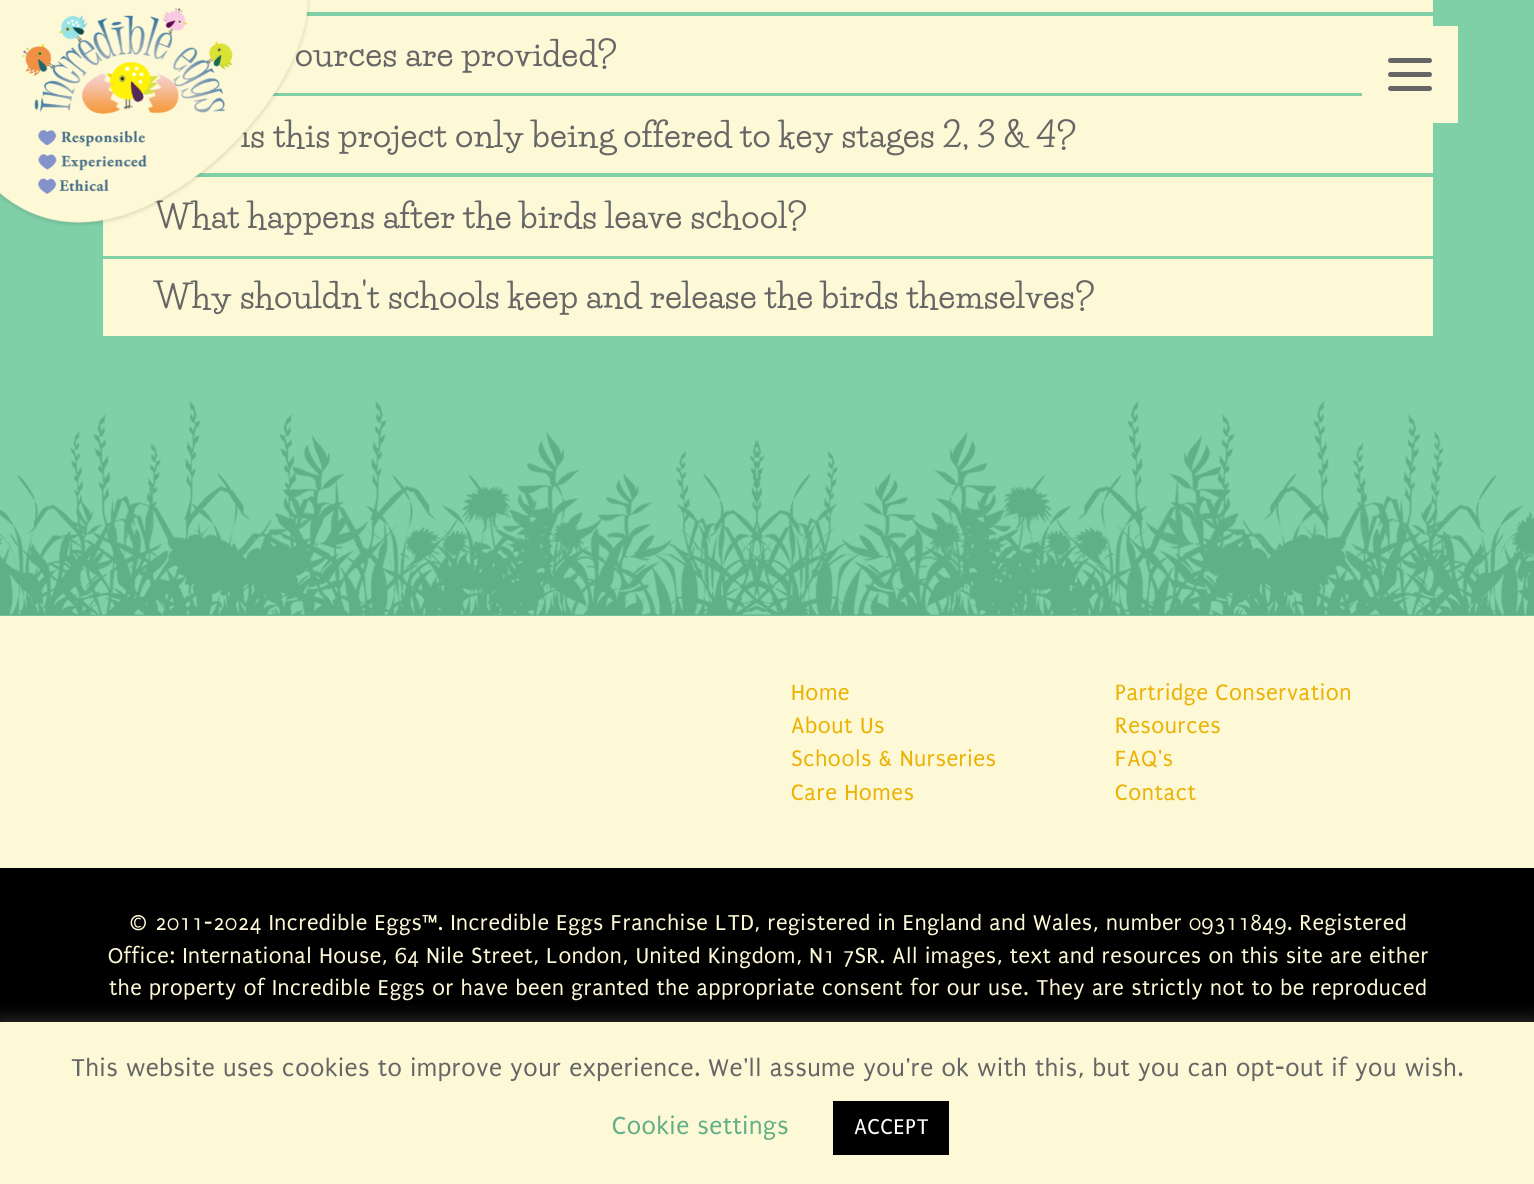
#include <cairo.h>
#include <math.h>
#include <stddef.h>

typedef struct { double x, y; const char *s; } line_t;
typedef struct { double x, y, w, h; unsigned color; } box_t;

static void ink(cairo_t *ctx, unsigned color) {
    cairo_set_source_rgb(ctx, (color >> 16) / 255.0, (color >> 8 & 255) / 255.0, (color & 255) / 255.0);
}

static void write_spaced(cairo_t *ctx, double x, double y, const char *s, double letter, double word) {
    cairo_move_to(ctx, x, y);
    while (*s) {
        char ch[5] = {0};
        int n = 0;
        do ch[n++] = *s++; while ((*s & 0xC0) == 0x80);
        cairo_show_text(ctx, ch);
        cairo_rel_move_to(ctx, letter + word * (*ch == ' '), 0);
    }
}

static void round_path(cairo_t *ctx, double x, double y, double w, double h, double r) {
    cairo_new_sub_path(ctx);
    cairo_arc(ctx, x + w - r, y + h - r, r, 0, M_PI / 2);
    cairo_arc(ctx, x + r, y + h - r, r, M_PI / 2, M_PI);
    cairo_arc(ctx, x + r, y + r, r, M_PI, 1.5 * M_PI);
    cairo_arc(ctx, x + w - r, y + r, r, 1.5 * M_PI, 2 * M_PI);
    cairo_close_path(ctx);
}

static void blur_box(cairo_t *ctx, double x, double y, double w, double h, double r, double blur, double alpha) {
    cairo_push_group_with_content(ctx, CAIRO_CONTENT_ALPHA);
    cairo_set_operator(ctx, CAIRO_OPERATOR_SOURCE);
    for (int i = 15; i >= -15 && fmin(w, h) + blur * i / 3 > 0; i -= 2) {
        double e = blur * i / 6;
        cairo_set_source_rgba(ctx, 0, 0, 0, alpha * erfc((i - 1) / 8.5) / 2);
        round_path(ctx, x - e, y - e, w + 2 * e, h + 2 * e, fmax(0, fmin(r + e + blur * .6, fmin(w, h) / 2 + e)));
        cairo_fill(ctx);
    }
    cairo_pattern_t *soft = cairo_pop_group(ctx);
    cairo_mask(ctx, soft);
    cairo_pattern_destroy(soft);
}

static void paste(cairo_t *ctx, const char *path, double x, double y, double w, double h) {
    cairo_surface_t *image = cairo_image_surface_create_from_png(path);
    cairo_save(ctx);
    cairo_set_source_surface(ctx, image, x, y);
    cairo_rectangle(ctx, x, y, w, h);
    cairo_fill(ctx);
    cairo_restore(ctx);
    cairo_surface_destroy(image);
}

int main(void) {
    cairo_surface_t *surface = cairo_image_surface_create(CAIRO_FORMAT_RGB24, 1534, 1184);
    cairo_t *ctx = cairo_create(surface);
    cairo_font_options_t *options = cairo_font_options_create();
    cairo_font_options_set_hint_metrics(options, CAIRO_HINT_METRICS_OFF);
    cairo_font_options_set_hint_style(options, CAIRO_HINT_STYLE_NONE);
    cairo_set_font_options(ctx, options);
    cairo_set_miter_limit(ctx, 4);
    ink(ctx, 0xFDF9D7);
    cairo_paint(ctx);
    {
        static const box_t items[] = {
            {0, 0, 1534, 616, 0x7FCFA7},
            {306, 0, 1127, 12, 0xFDF9D6},
            {274, 16, 1159, 77, 0xFDF9D6},
        };
        for (size_t i = 0; i < sizeof items / sizeof *items; i++) {
            ink(ctx, items[i].color);
            cairo_rectangle(ctx, items[i].x, items[i].y, items[i].w, items[i].h);
            cairo_fill(ctx);
        }
    }
    cairo_select_font_face(ctx, "Life Savers", CAIRO_FONT_SLANT_NORMAL, CAIRO_FONT_WEIGHT_BOLD);
    cairo_set_font_size(ctx, 33.6);
    ink(ctx, 0x666666);
    write_spaced(ctx, 295, 66, "ources are provided?", 0.56, 0);
    ink(ctx, 0xFDF9D6);
    cairo_rectangle(ctx, 199, 96, 1234, 77);
    cairo_fill(ctx);
    ink(ctx, 0x666666);
    write_spaced(ctx, 240, 147, "is this project only being offered to key stages 2, 3 & 4?", 0.56, 0);
    ink(ctx, 0xFDF9D6);
    cairo_rectangle(ctx, 103, 177, 1330, 79);
    cairo_fill(ctx);
    ink(ctx, 0x666666);
    write_spaced(ctx, 154, 228, "What happens after the birds leave school?", 0.56, 0);
    paste(ctx, "media/1.png", 0, 0, 310, 226);
    ink(ctx, 0xFDF9D7);
    cairo_rectangle(ctx, 1362, 26, 96, 97);
    cairo_fill(ctx);
    ink(ctx, 0x666666);
    round_path(ctx, 1388, 72, 44, 5, 2.5);
    cairo_fill(ctx);
    round_path(ctx, 1388, 58, 44, 5, 2.5);
    cairo_fill(ctx);
    round_path(ctx, 1388, 86, 44, 5, 2.5);
    cairo_fill(ctx);
    paste(ctx, "media/2.png", 0, 401, 1534, 215);
    ink(ctx, 0xFDF9D6);
    cairo_rectangle(ctx, 103, 259, 1330, 77);
    cairo_fill(ctx);
    ink(ctx, 0x666666);
    write_spaced(ctx, 154, 308, "Why shouldn't schools keep and release the birds themselves?", 0.56, 0);
    cairo_select_font_face(ctx, "Puritan", CAIRO_FONT_SLANT_NORMAL, CAIRO_FONT_WEIGHT_NORMAL);
    cairo_set_font_size(ctx, 23.75);
    ink(ctx, 0xEBB205);
    {
        static const line_t items[] = {
            {791, 700, "Home"},
            {791, 733, "About Us"},
            {791, 766, "Schools & Nurseries"},
            {791, 800, "Care Homes"},
            {1115, 700, "Partridge Conservation"},
            {1115, 733, "Resources"},
            {1115, 766, "FAQ's"},
            {1115, 800, "Contact"},
        };
        for (size_t i = 0; i < sizeof items / sizeof *items; i++) {
            write_spaced(ctx, items[i].x, items[i].y, items[i].s, 0.56, 0);
        }
    }
    ink(ctx, 0x000000);
    cairo_rectangle(ctx, 0, 868, 1534, 154);
    cairo_fill(ctx);
    cairo_set_font_size(ctx, 23.25);
    ink(ctx, 0xFDF9D7);
    {
        static const line_t items[] = {
            {129, 930, "© 2011-2024 Incredible Eggs™. Incredible Eggs Franchise LTD, registered in England and Wales, number 09311849. Registered"},
            {108, 963, "Office: International House, 64 Nile Street, London, United Kingdom, N1 7SR. All images, text and resources on this site are either"},
            {109, 995, "the property of Incredible Eggs or have been granted the appropriate consent for our use. They are strictly not to be reproduced"},
        };
        for (size_t i = 0; i < sizeof items / sizeof *items; i++) {
            write_spaced(ctx, items[i].x, items[i].y, items[i].s, 0.56, 0);
        }
    }
    ink(ctx, 0xACABAB);
    blur_box(ctx, 0, 1020, 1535, 163, 0, 9, 0.3);
    ink(ctx, 0xFDF9D7);
    cairo_rectangle(ctx, 0, 1022, 1534, 162);
    cairo_fill(ctx);
    cairo_set_font_size(ctx, 26.25);
    ink(ctx, 0x666666);
    write_spaced(ctx, 71, 1076, "This website uses cookies to improve your experience. We'll assume you're ok with this, but you can opt-out if you wish.", 0.56, 0);
    ink(ctx, 0x61AF87);
    write_spaced(ctx, 612, 1134, "Cookie settings", 0.56, 0);
    ink(ctx, 0x000000);
    cairo_rectangle(ctx, 833, 1101, 116, 54);
    cairo_fill(ctx);
    cairo_set_font_size(ctx, 23);
    ink(ctx, 0xFFFFFF);
    write_spaced(ctx, 854, 1134, "ACCEPT", 0.56, 0);
    cairo_surface_write_to_png(surface, "image.png");
    cairo_font_options_destroy(options);
    cairo_destroy(ctx);
    cairo_surface_destroy(surface);
    return 0;
}
